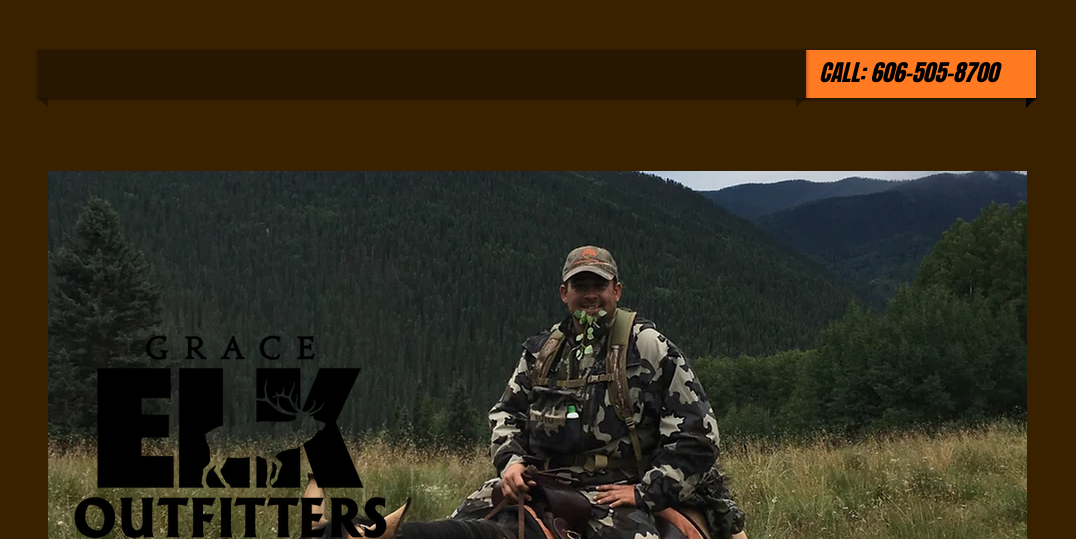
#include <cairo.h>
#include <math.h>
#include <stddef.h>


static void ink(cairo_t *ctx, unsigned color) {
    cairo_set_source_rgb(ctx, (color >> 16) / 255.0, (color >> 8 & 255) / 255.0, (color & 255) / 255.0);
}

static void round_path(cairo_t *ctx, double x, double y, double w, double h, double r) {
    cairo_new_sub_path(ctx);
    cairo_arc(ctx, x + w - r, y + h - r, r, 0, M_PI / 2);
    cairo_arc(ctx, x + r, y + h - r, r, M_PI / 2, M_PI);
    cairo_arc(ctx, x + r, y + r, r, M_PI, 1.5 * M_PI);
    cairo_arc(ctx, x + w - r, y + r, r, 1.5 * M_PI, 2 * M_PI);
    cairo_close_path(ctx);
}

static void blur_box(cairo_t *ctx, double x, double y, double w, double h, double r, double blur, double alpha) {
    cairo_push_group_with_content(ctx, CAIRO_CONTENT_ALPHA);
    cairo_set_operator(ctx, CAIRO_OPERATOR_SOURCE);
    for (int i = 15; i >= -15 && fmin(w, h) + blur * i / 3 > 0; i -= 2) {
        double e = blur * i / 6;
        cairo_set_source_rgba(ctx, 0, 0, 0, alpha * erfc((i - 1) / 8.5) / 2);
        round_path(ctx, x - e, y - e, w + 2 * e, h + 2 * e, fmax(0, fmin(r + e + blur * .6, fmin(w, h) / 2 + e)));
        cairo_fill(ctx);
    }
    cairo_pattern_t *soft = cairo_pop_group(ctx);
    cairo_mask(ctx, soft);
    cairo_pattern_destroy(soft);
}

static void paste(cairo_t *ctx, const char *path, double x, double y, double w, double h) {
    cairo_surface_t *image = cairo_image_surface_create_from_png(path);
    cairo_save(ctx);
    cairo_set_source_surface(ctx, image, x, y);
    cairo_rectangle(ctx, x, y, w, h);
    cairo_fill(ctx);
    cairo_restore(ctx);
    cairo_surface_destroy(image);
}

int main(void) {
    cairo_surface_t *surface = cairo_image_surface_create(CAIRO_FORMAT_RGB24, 1076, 539);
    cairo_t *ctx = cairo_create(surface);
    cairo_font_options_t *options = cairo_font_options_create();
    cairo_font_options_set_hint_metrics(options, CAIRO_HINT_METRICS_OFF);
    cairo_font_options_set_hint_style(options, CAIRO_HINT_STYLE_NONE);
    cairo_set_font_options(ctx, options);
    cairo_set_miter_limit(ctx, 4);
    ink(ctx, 0x392100);
    cairo_paint(ctx);
    ink(ctx, 0x281700);
    cairo_new_path(ctx);
    cairo_move_to(ctx, 38, 98);
    cairo_line_to(ctx, 48, 98);
    cairo_line_to(ctx, 48, 108);
    cairo_close_path(ctx);
    cairo_fill(ctx);
    ink(ctx, 0x000000);
    cairo_new_path(ctx);
    cairo_move_to(ctx, 1026, 98);
    cairo_line_to(ctx, 1036, 98);
    cairo_line_to(ctx, 1026, 108);
    cairo_close_path(ctx);
    cairo_fill(ctx);
    ink(ctx, 0x000000);
    blur_box(ctx, 805, 51, 231, 48, 0, 2, 0.6);
    ink(ctx, 0x281700);
    cairo_new_path(ctx);
    cairo_move_to(ctx, 796, 98);
    cairo_line_to(ctx, 806, 98);
    cairo_line_to(ctx, 796, 108);
    cairo_close_path(ctx);
    cairo_fill(ctx);
    ink(ctx, 0xFF7A20);
    cairo_rectangle(ctx, 806, 50, 230, 48);
    cairo_fill(ctx);
    ink(ctx, 0x000000);
    blur_box(ctx, 38, 51, 768, 48, 0, 2, 0.6);
    ink(ctx, 0x281700);
    cairo_rectangle(ctx, 38, 50, 768, 48);
    cairo_fill(ctx);
    cairo_select_font_face(ctx, "Anton", CAIRO_FONT_SLANT_ITALIC, CAIRO_FONT_WEIGHT_NORMAL);
    cairo_set_font_size(ctx, 23);
    ink(ctx, 0x000000);
    cairo_move_to(ctx, 819, 82);
    cairo_show_text(ctx, "CALL: 606-505-8700");
    paste(ctx, "media/1.png", 48, 171, 979, 368);
    paste(ctx, "media/2.png", 74, 335, 313, 204);
    cairo_surface_write_to_png(surface, "image.png");
    cairo_font_options_destroy(options);
    cairo_destroy(ctx);
    cairo_surface_destroy(surface);
    return 0;
}
